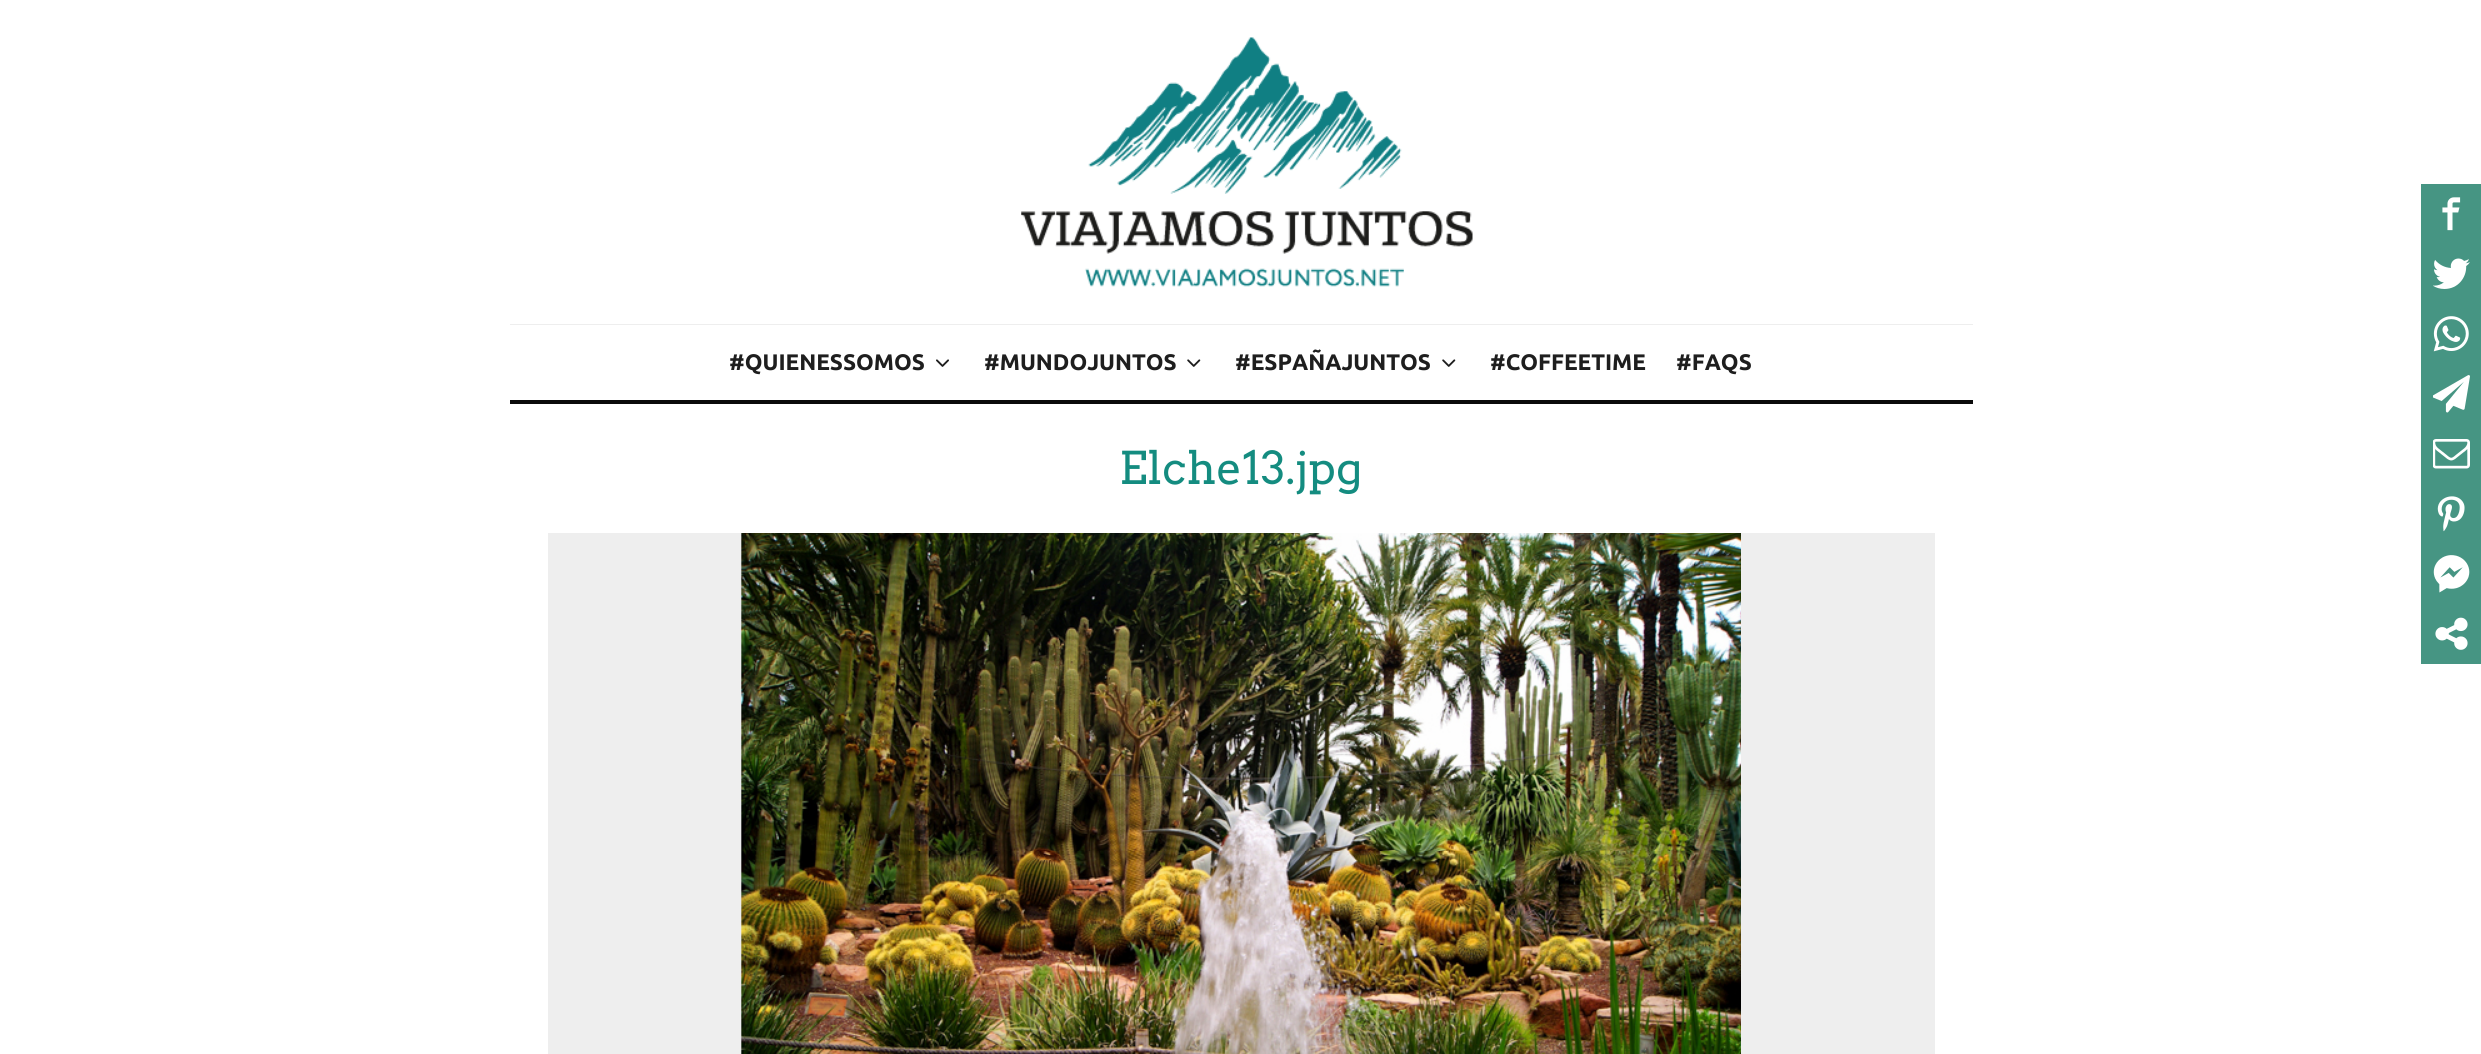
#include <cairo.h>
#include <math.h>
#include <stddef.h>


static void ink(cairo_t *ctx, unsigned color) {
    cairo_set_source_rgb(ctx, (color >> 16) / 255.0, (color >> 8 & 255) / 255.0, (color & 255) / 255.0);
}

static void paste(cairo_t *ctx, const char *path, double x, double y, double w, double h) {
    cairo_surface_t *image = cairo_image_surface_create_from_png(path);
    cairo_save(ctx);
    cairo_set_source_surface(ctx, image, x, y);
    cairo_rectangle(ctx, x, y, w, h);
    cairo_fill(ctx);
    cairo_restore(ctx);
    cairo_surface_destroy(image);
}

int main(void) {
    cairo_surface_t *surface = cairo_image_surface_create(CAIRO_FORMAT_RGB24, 2481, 1054);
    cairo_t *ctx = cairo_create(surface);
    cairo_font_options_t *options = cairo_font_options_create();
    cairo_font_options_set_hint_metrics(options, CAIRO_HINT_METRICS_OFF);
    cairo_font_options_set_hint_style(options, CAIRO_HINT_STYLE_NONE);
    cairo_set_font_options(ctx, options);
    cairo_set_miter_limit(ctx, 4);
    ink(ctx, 0xFFFFFF);
    cairo_paint(ctx);
    paste(ctx, "media/1.png", 1021, 37, 452, 250);
    ink(ctx, 0xEEEEEE);
    cairo_rectangle(ctx, 510, 324, 1463, 1);
    cairo_fill(ctx);
    ink(ctx, 0x0A0A0A);
    cairo_rectangle(ctx, 510, 400, 1463, 4);
    cairo_fill(ctx);
    cairo_select_font_face(ctx, "Ubuntu", CAIRO_FONT_SLANT_NORMAL, CAIRO_FONT_WEIGHT_BOLD);
    cairo_set_font_size(ctx, 22.5);
    ink(ctx, 0x1E1E1E);
    cairo_move_to(ctx, 729, 370);
    cairo_show_text(ctx, "#QUIENESSOMOS");
    paste(ctx, "media/2.png", 936, 359, 13, 8);
    cairo_move_to(ctx, 984, 370);
    cairo_show_text(ctx, "#MUNDOJUNTOS");
    paste(ctx, "media/3.png", 1187, 359, 14, 8);
    cairo_move_to(ctx, 1235, 370);
    cairo_show_text(ctx, "#ESPAÑAJUNTOS");
    paste(ctx, "media/3.png", 1442, 359, 14, 8);
    cairo_move_to(ctx, 1490, 370);
    cairo_show_text(ctx, "#COFFEETIME");
    cairo_move_to(ctx, 1676, 370);
    cairo_show_text(ctx, "#FAQS");
    cairo_select_font_face(ctx, "Arvo", CAIRO_FONT_SLANT_NORMAL, CAIRO_FONT_WEIGHT_NORMAL);
    cairo_set_font_size(ctx, 45);
    ink(ctx, 0x148C80);
    cairo_move_to(ctx, 1119, 484);
    cairo_show_text(ctx, "Elche13.jpg");
    ink(ctx, 0xEEEEEE);
    cairo_rectangle(ctx, 548, 533, 1387, 521);
    cairo_fill(ctx);
    paste(ctx, "media/4.png", 741, 533, 1000, 521);
    ink(ctx, 0x469583);
    cairo_rectangle(ctx, 2421, 184, 60, 480);
    cairo_fill(ctx);
    paste(ctx, "media/5.png", 2442, 197, 19, 34);
    paste(ctx, "media/6.png", 2433, 258, 37, 31);
    paste(ctx, "media/7.png", 2433, 316, 36, 36);
    paste(ctx, "media/8.png", 2433, 375, 37, 38);
    paste(ctx, "media/9.png", 2433, 439, 37, 30);
    paste(ctx, "media/10.png", 2437, 496, 28, 36);
    paste(ctx, "media/11.png", 2433, 555, 37, 38);
    paste(ctx, "media/12.png", 2435, 617, 33, 33);
    cairo_surface_write_to_png(surface, "image.png");
    cairo_font_options_destroy(options);
    cairo_destroy(ctx);
    cairo_surface_destroy(surface);
    return 0;
}
